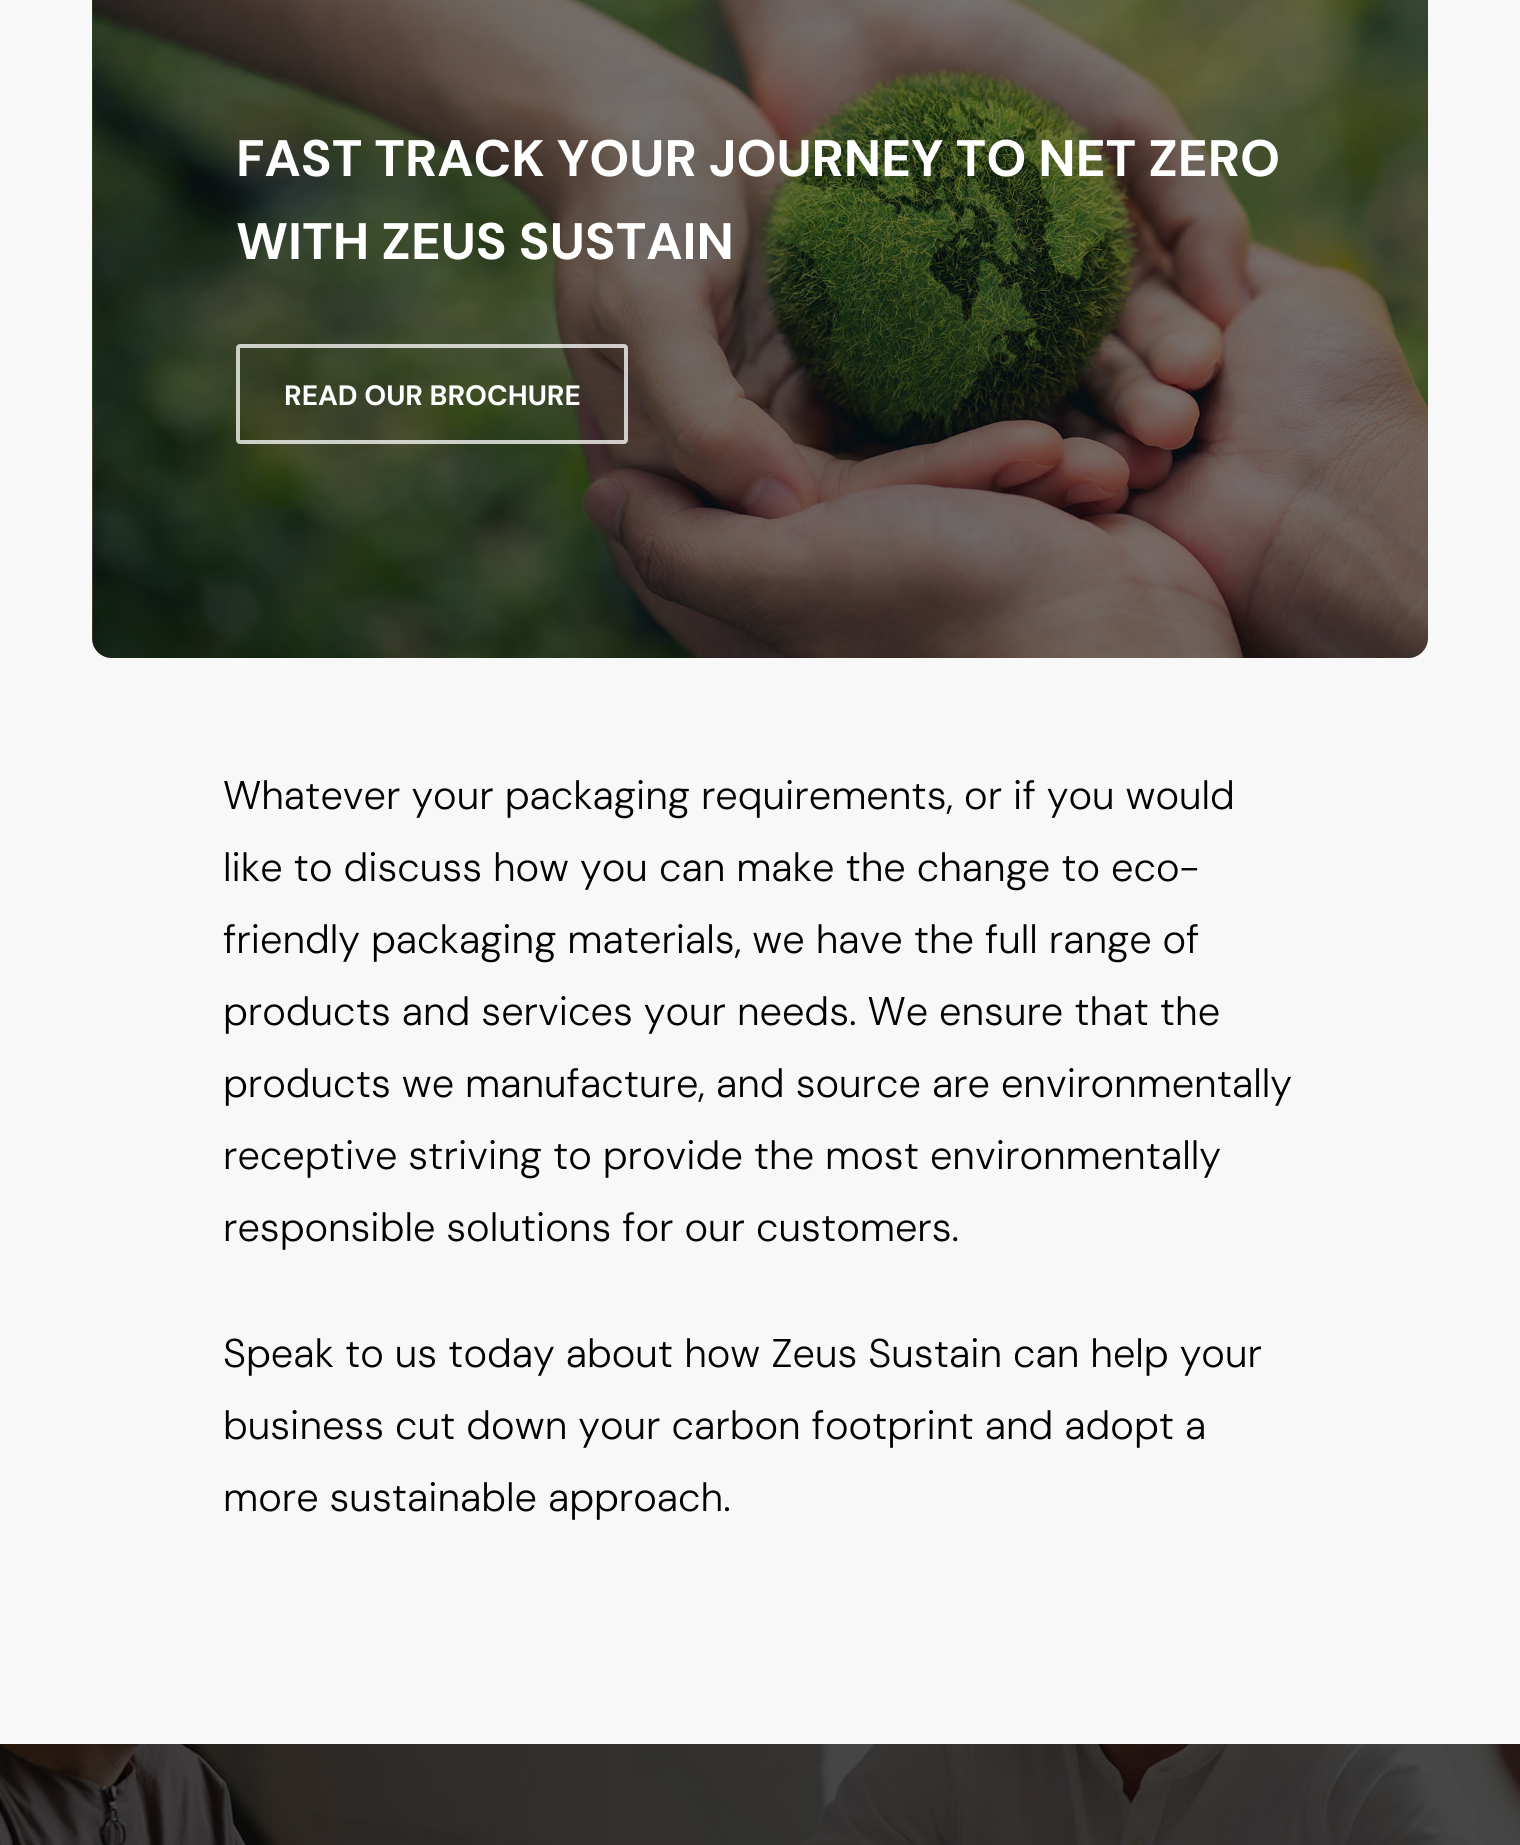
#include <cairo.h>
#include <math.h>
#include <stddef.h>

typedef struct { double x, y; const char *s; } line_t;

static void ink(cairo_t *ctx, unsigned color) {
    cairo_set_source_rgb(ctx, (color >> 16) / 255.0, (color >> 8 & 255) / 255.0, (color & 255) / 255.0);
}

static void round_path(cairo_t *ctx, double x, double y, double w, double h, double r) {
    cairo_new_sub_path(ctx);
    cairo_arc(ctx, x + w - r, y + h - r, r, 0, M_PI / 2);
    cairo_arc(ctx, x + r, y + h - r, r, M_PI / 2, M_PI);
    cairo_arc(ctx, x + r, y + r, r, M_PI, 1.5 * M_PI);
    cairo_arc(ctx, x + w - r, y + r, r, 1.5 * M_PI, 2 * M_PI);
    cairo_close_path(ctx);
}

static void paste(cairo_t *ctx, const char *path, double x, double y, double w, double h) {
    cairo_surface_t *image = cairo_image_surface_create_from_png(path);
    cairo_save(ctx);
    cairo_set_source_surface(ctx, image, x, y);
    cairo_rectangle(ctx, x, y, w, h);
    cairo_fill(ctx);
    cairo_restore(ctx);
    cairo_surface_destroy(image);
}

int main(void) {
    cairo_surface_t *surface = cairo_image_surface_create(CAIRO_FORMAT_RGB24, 1520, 1845);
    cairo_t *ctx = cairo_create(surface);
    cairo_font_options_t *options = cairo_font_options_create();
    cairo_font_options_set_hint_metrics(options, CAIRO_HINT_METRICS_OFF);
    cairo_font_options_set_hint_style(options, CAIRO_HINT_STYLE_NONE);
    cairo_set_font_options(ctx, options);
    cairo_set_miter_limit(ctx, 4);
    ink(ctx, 0xF8F8F8);
    cairo_paint(ctx);
    paste(ctx, "media/1.png", 92, 0, 1336, 658);
    cairo_set_source_rgba(ctx, 0, 0, 0, 0.5);
    round_path(ctx, 92, -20, 1336, 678, 20);
    cairo_fill(ctx);
    cairo_select_font_face(ctx, "DM Sans", CAIRO_FONT_SLANT_NORMAL, CAIRO_FONT_WEIGHT_BOLD);
    cairo_set_font_size(ctx, 51.2);
    ink(ctx, 0xFFFFFF);
    cairo_move_to(ctx, 236, 176);
    cairo_show_text(ctx, "FAST TRACK YOUR JOURNEY TO NET ZERO");
    cairo_move_to(ctx, 236, 259);
    cairo_show_text(ctx, "WITH ZEUS SUSTAIN");
    round_path(ctx, 238, 346, 388, 96, 2);
    cairo_set_source_rgba(ctx, 1, 1, 1, 0.75);
    cairo_set_line_width(ctx, 4);
    cairo_stroke(ctx);
    cairo_set_font_size(ctx, 28);
    ink(ctx, 0xFFFFFF);
    cairo_move_to(ctx, 284, 405);
    cairo_show_text(ctx, "READ OUR BROCHURE");
    cairo_select_font_face(ctx, "DM Sans Light", CAIRO_FONT_SLANT_NORMAL, CAIRO_FONT_WEIGHT_NORMAL);
    cairo_set_font_size(ctx, 40);
    ink(ctx, 0x020202);
    {
        static const line_t items[] = {
            {223, 809, "Whatever your packaging requirements, or if you would"},
            {223, 881, "like to discuss how you can make the change to eco-"},
            {223, 953, "friendly packaging materials, we have the full range of"},
            {223, 1025, "products and services your needs. We ensure that the"},
            {223, 1097, "products we manufacture, and source are environmentally"},
            {223, 1169, "receptive striving to provide the most environmentally"},
            {223, 1241, "responsible solutions for our customers."},
            {223, 1367, "Speak to us today about how Zeus Sustain can help your"},
            {223, 1439, "business cut down your carbon footprint and adopt a"},
            {223, 1511, "more sustainable approach."},
        };
        for (size_t i = 0; i < sizeof items / sizeof *items; i++) {
            cairo_move_to(ctx, items[i].x, items[i].y);
            cairo_show_text(ctx, items[i].s);
        }
    }
    paste(ctx, "media/2.png", 0, 1744, 1520, 101);
    cairo_surface_write_to_png(surface, "image.png");
    cairo_font_options_destroy(options);
    cairo_destroy(ctx);
    cairo_surface_destroy(surface);
    return 0;
}
